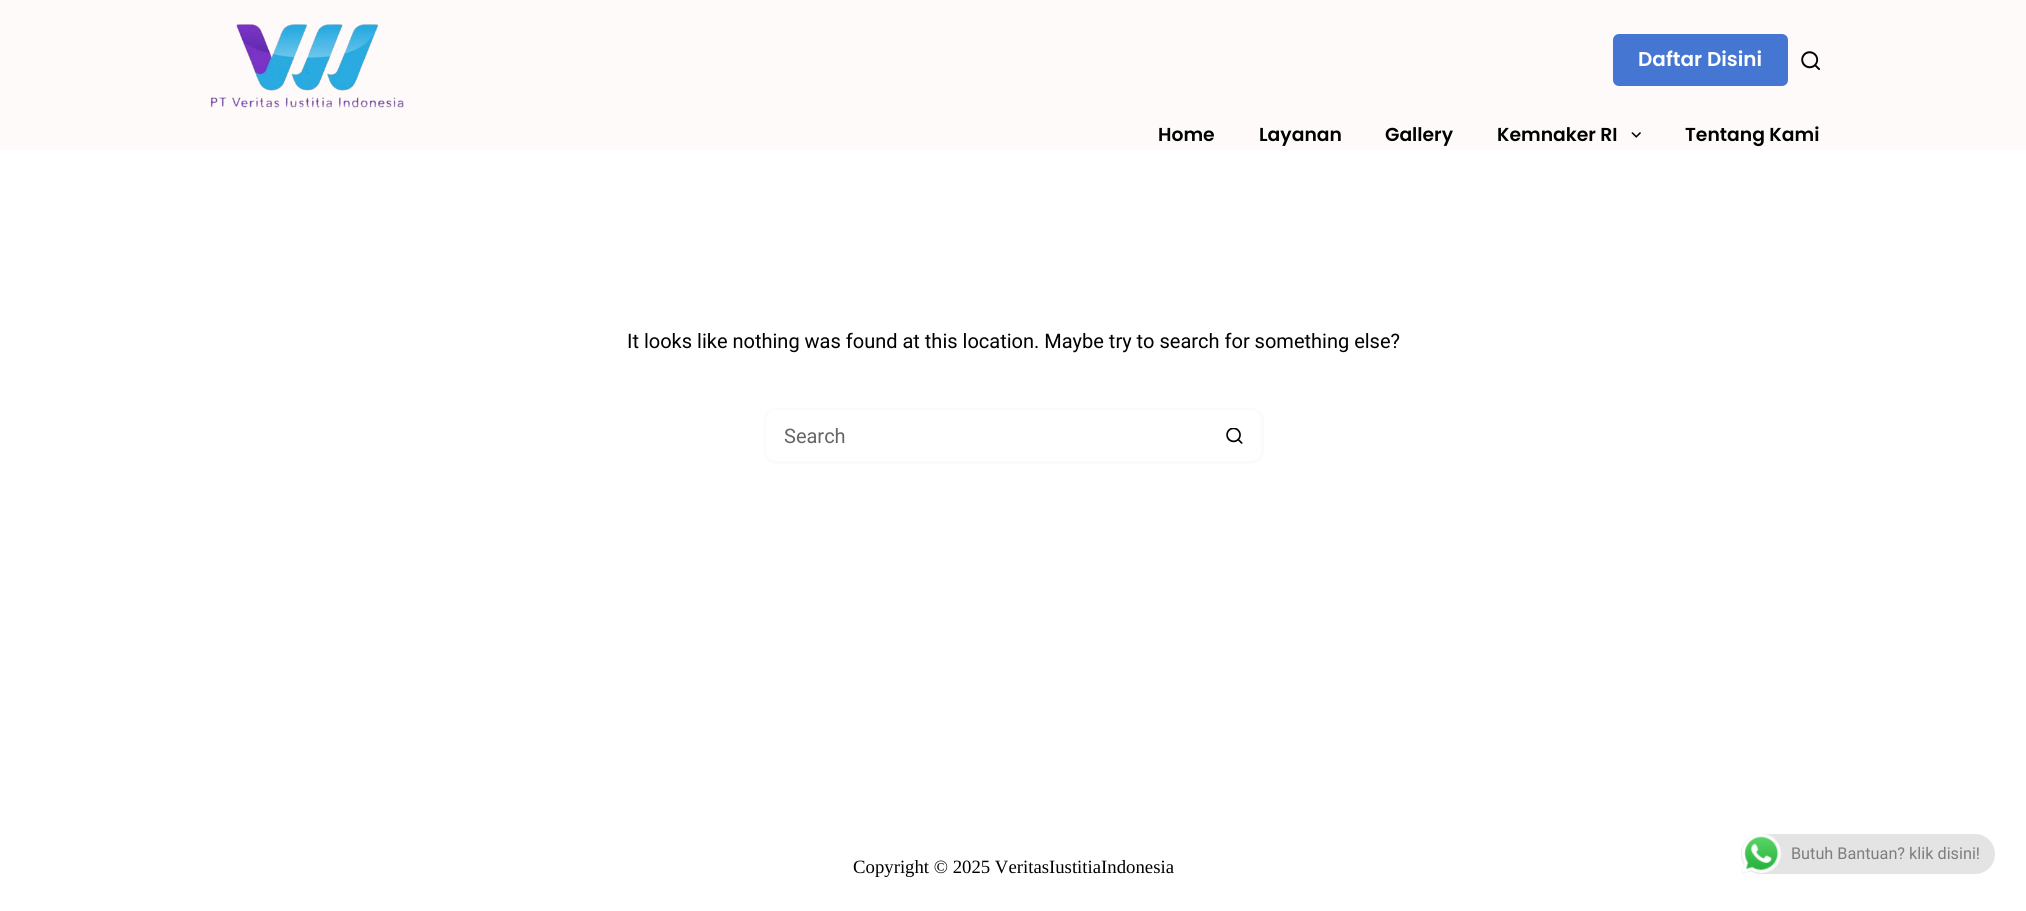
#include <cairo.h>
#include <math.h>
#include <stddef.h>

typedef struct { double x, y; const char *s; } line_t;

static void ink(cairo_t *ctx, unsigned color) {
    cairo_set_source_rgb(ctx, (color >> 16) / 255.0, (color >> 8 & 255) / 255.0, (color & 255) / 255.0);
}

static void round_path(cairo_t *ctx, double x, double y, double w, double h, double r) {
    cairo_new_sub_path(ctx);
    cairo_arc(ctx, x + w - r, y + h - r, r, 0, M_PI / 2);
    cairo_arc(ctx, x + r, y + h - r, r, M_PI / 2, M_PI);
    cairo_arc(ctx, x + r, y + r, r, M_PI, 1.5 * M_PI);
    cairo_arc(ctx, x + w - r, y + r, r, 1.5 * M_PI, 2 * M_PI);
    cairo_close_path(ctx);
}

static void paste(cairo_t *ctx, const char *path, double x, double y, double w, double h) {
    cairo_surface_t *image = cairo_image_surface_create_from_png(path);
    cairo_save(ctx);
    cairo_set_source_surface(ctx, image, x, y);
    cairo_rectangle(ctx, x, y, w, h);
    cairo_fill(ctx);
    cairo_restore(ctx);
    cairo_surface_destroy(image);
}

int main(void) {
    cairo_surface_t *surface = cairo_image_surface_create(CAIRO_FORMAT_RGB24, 2026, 911);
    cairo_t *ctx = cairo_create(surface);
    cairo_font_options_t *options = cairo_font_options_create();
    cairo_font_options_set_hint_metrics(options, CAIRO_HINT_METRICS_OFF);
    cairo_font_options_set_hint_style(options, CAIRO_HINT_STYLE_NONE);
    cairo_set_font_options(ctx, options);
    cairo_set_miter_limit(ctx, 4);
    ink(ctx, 0xFFFFFF);
    cairo_paint(ctx);
    ink(ctx, 0xFFFAFA);
    cairo_rectangle(ctx, 0, 0, 2026, 150);
    cairo_fill(ctx);
    paste(ctx, "media/1.png", 210, 24, 194, 84);
    ink(ctx, 0x4576D1);
    round_path(ctx, 1613, 34, 175, 52, 6);
    cairo_fill(ctx);
    cairo_select_font_face(ctx, "Poppins SemiBold", CAIRO_FONT_SLANT_NORMAL, CAIRO_FONT_WEIGHT_NORMAL);
    cairo_set_font_size(ctx, 20);
    ink(ctx, 0xFFFFFF);
    cairo_move_to(ctx, 1638, 66);
    cairo_show_text(ctx, "Daftar Disini");
    paste(ctx, "media/2.png", 1801, 51, 19, 19);
    cairo_set_font_size(ctx, 18.75);
    ink(ctx, 0x000000);
    {
        static const line_t items[] = {
            {1158, 141, "Home"},
            {1259, 141, "Layanan"},
            {1385, 141, "Gallery"},
            {1497, 141, "Kemnaker RI"},
        };
        for (size_t i = 0; i < sizeof items / sizeof *items; i++) {
            cairo_move_to(ctx, items[i].x, items[i].y);
            cairo_show_text(ctx, items[i].s);
        }
    }
    paste(ctx, "media/3.png", 1631, 132, 10, 6);
    cairo_move_to(ctx, 1685, 141);
    cairo_show_text(ctx, "Tentang Kami");
    cairo_select_font_face(ctx, "Roboto", CAIRO_FONT_SLANT_NORMAL, CAIRO_FONT_WEIGHT_NORMAL);
    cairo_set_font_size(ctx, 20);
    cairo_move_to(ctx, 627, 348);
    cairo_show_text(ctx, "It looks like nothing was found at this location. Maybe try to search for something else?");
    ink(ctx, 0xFBFBFB);
    cairo_set_fill_rule(ctx, CAIRO_FILL_RULE_EVEN_ODD);
    cairo_new_path(ctx);
    cairo_move_to(ctx, 776, 408);
    cairo_line_to(ctx, 1208, 408);
    cairo_line_to(ctx, 1208, 464);
    cairo_line_to(ctx, 776, 464);
    cairo_curve_to(ctx, 769, 464, 764, 458, 764, 451);
    cairo_line_to(ctx, 764, 420);
    cairo_curve_to(ctx, 764, 413, 769, 408, 776, 408);
    cairo_close_path(ctx);
    cairo_move_to(ctx, 776, 410);
    cairo_line_to(ctx, 1208, 410);
    cairo_line_to(ctx, 1208, 461);
    cairo_line_to(ctx, 776, 461);
    cairo_curve_to(ctx, 771, 461, 766, 457, 766, 451);
    cairo_line_to(ctx, 766, 420);
    cairo_curve_to(ctx, 766, 414, 771, 410, 776, 410);
    cairo_close_path(ctx);
    cairo_fill(ctx);
    ink(ctx, 0x666666);
    cairo_move_to(ctx, 784, 443);
    cairo_show_text(ctx, "Search");
    ink(ctx, 0xFBFBFB);
    cairo_new_path(ctx);
    cairo_move_to(ctx, 1208, 408);
    cairo_line_to(ctx, 1251, 408);
    cairo_curve_to(ctx, 1258, 408, 1264, 413, 1264, 420);
    cairo_line_to(ctx, 1264, 451);
    cairo_curve_to(ctx, 1264, 458, 1258, 464, 1251, 464);
    cairo_line_to(ctx, 1208, 464);
    cairo_close_path(ctx);
    cairo_move_to(ctx, 1208, 410);
    cairo_line_to(ctx, 1251, 410);
    cairo_curve_to(ctx, 1257, 410, 1261, 414, 1261, 420);
    cairo_line_to(ctx, 1261, 451);
    cairo_curve_to(ctx, 1261, 457, 1257, 461, 1251, 461);
    cairo_line_to(ctx, 1208, 461);
    cairo_close_path(ctx);
    cairo_fill(ctx);
    paste(ctx, "media/4.png", 1226, 428, 17, 16);
    cairo_select_font_face(ctx, "Liberation Serif", CAIRO_FONT_SLANT_NORMAL, CAIRO_FONT_WEIGHT_NORMAL);
    cairo_set_font_size(ctx, 18.75);
    ink(ctx, 0x000000);
    cairo_move_to(ctx, 853, 873);
    cairo_show_text(ctx, "Copyright © 2025 VeritasIustitiaIndonesia");
    ink(ctx, 0xE4E4E4);
    round_path(ctx, 1741, 834, 254, 40, 20);
    cairo_fill(ctx);
    paste(ctx, "media/5.png", 1741, 834, 41, 40);
    cairo_select_font_face(ctx, "Roboto", CAIRO_FONT_SLANT_NORMAL, CAIRO_FONT_WEIGHT_NORMAL);
    cairo_set_font_size(ctx, 16.25);
    ink(ctx, 0x7F7D7D);
    cairo_move_to(ctx, 1791, 859);
    cairo_show_text(ctx, "Butuh Bantuan? klik disini!");
    cairo_surface_write_to_png(surface, "image.png");
    cairo_font_options_destroy(options);
    cairo_destroy(ctx);
    cairo_surface_destroy(surface);
    return 0;
}
